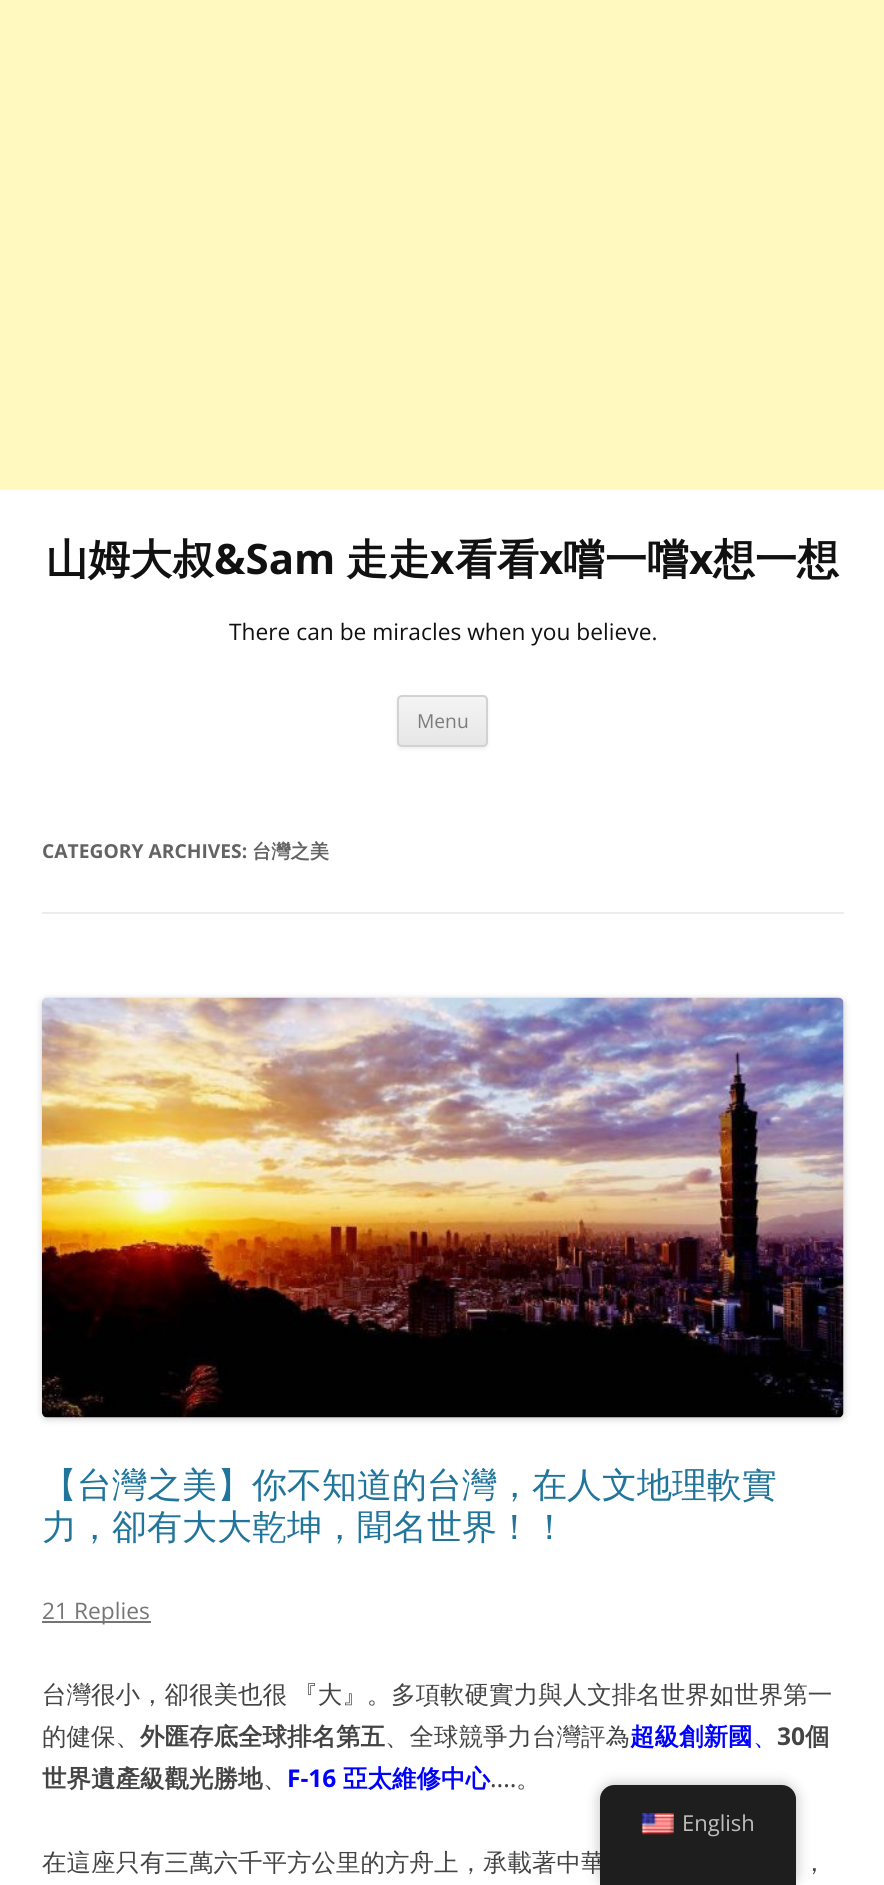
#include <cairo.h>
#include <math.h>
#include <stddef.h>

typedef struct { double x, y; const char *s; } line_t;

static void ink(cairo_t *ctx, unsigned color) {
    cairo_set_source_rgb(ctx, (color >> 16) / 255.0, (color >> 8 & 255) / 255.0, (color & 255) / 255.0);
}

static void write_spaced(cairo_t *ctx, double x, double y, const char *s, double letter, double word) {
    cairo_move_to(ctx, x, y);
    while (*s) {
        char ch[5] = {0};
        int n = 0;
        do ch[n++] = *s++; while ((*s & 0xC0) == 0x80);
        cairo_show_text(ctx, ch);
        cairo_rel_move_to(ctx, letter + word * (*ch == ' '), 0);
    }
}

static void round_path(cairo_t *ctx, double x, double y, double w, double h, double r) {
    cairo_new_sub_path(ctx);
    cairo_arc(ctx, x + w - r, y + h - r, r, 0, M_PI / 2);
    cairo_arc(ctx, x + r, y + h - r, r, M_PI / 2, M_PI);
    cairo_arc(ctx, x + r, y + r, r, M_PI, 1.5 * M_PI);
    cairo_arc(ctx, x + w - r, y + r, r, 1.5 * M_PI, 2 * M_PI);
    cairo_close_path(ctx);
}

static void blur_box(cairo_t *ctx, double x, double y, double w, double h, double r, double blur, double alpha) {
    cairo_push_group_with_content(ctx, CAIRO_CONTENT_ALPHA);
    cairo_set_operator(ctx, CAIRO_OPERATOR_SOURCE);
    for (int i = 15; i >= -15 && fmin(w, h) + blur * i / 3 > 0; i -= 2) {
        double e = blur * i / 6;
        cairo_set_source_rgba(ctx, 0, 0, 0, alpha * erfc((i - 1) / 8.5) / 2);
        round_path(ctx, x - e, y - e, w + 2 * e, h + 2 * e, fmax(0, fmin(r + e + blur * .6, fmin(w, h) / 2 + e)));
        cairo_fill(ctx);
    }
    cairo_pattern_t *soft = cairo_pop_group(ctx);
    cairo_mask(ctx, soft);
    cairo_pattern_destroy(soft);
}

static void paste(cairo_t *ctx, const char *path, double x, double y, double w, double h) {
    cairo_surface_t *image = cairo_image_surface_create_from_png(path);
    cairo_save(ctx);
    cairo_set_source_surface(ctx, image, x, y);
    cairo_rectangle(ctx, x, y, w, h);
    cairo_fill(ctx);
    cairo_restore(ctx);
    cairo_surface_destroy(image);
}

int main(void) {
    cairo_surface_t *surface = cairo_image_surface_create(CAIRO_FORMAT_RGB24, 884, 1885);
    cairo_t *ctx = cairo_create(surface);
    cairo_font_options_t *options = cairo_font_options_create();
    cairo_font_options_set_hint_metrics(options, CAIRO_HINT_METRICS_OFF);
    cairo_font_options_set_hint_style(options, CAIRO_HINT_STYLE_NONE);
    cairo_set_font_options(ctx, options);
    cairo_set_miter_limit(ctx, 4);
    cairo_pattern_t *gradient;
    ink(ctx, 0xFFFFFF);
    cairo_paint(ctx);
    ink(ctx, 0xFFF9C0);
    cairo_rectangle(ctx, 0, 0, 884, 490);
    cairo_fill(ctx);
    cairo_select_font_face(ctx, "WenQuanYi Zen Hei", CAIRO_FONT_SLANT_NORMAL, CAIRO_FONT_WEIGHT_BOLD);
    cairo_set_font_size(ctx, 42);
    ink(ctx, 0x111111);
    cairo_move_to(ctx, 46, 574);
    cairo_show_text(ctx, "山姆大叔");
    cairo_select_font_face(ctx, "Open Sans", CAIRO_FONT_SLANT_NORMAL, CAIRO_FONT_WEIGHT_BOLD);
    cairo_move_to(ctx, 214, 574);
    cairo_show_text(ctx, "&Sam");
    cairo_select_font_face(ctx, "WenQuanYi Zen Hei", CAIRO_FONT_SLANT_NORMAL, CAIRO_FONT_WEIGHT_BOLD);
    cairo_move_to(ctx, 346, 574);
    cairo_show_text(ctx, "走走");
    cairo_select_font_face(ctx, "Open Sans", CAIRO_FONT_SLANT_NORMAL, CAIRO_FONT_WEIGHT_BOLD);
    cairo_move_to(ctx, 430, 574);
    cairo_show_text(ctx, "x");
    cairo_select_font_face(ctx, "WenQuanYi Zen Hei", CAIRO_FONT_SLANT_NORMAL, CAIRO_FONT_WEIGHT_BOLD);
    cairo_move_to(ctx, 455, 574);
    cairo_show_text(ctx, "看看");
    cairo_select_font_face(ctx, "Open Sans", CAIRO_FONT_SLANT_NORMAL, CAIRO_FONT_WEIGHT_BOLD);
    cairo_move_to(ctx, 539, 574);
    cairo_show_text(ctx, "x");
    cairo_select_font_face(ctx, "WenQuanYi Zen Hei", CAIRO_FONT_SLANT_NORMAL, CAIRO_FONT_WEIGHT_BOLD);
    cairo_move_to(ctx, 563, 574);
    cairo_show_text(ctx, "嚐一嚐");
    cairo_select_font_face(ctx, "Open Sans", CAIRO_FONT_SLANT_NORMAL, CAIRO_FONT_WEIGHT_BOLD);
    cairo_move_to(ctx, 689, 574);
    cairo_show_text(ctx, "x");
    cairo_select_font_face(ctx, "WenQuanYi Zen Hei", CAIRO_FONT_SLANT_NORMAL, CAIRO_FONT_WEIGHT_BOLD);
    cairo_move_to(ctx, 713, 574);
    cairo_show_text(ctx, "想一想");
    cairo_select_font_face(ctx, "Open Sans", CAIRO_FONT_SLANT_NORMAL, CAIRO_FONT_WEIGHT_NORMAL);
    cairo_set_font_size(ctx, 22.75);
    cairo_move_to(ctx, 229, 640);
    cairo_show_text(ctx, "There can be miracles when you believe.");
    ink(ctx, 0x404040);
    blur_box(ctx, 397, 697, 91, 52, 5, 2, 0.1);
    cairo_save(ctx);
    round_path(ctx, 397, 695, 91, 52, 5);
    cairo_clip(ctx);
    gradient = cairo_pattern_create_linear(443, 697, 443, 746);
    cairo_pattern_add_color_stop_rgba(gradient, 0, 0.957, 0.957, 0.957, 1);
    cairo_pattern_add_color_stop_rgba(gradient, 1, 0.902, 0.902, 0.902, 1);
    cairo_set_source(ctx, gradient);
    cairo_pattern_destroy(gradient);
    cairo_rectangle(ctx, 397, 697, 91, 49);
    cairo_fill(ctx);
    cairo_restore(ctx);
    round_path(ctx, 398, 696, 89, 50, 4);
    ink(ctx, 0xD2D2D2);
    cairo_stroke(ctx);
    cairo_set_font_size(ctx, 19.25);
    ink(ctx, 0x7C7C7C);
    cairo_move_to(ctx, 417, 728);
    cairo_show_text(ctx, "Menu");
    ink(ctx, 0xEDEDED);
    cairo_rectangle(ctx, 42, 912, 802, 2);
    cairo_fill(ctx);
    cairo_select_font_face(ctx, "Open Sans", CAIRO_FONT_SLANT_NORMAL, CAIRO_FONT_WEIGHT_BOLD);
    ink(ctx, 0x636363);
    cairo_move_to(ctx, 42, 858);
    cairo_show_text(ctx, "CATEGORY ARCHIVES:");
    cairo_select_font_face(ctx, "WenQuanYi Zen Hei", CAIRO_FONT_SLANT_NORMAL, CAIRO_FONT_WEIGHT_BOLD);
    cairo_move_to(ctx, 252, 858);
    cairo_show_text(ctx, "台灣之美");
    ink(ctx, 0x000000);
    blur_box(ctx, 42, 999, 802, 420, 5, 3.5, 0.2);
    paste(ctx, "media/1.png", 42, 997, 802, 421);
    cairo_select_font_face(ctx, "WenQuanYi Zen Hei Medium", CAIRO_FONT_SLANT_NORMAL, CAIRO_FONT_WEIGHT_NORMAL);
    cairo_set_font_size(ctx, 35);
    ink(ctx, 0x21759B);
    cairo_move_to(ctx, 42, 1497);
    cairo_show_text(ctx, "【台灣之美】你不知道的台灣，在人文地理軟實");
    cairo_move_to(ctx, 42, 1539);
    cairo_show_text(ctx, "力，卻有大大乾坤，聞名世界！！");
    ink(ctx, 0x757575);
    cairo_rectangle(ctx, 42, 1621, 109, 2);
    cairo_fill(ctx);
    cairo_select_font_face(ctx, "Open Sans", CAIRO_FONT_SLANT_NORMAL, CAIRO_FONT_WEIGHT_NORMAL);
    cairo_set_font_size(ctx, 22.75);
    cairo_move_to(ctx, 42, 1619);
    cairo_show_text(ctx, "21 Replies");
    cairo_select_font_face(ctx, "WenQuanYi Zen Hei Medium", CAIRO_FONT_SLANT_NORMAL, CAIRO_FONT_WEIGHT_NORMAL);
    cairo_set_font_size(ctx, 24.5);
    ink(ctx, 0x444444);
    write_spaced(ctx, 42, 1703, "台灣很小，卻很美也很 『大』。多項軟硬實力與人文排名世界如世界第一", 0, -1);
    cairo_move_to(ctx, 42, 1745);
    cairo_show_text(ctx, "的健保、");
    cairo_select_font_face(ctx, "WenQuanYi Zen Hei", CAIRO_FONT_SLANT_NORMAL, CAIRO_FONT_WEIGHT_BOLD);
    cairo_move_to(ctx, 140, 1745);
    cairo_show_text(ctx, "外匯存底全球排名第五");
    cairo_select_font_face(ctx, "WenQuanYi Zen Hei Medium", CAIRO_FONT_SLANT_NORMAL, CAIRO_FONT_WEIGHT_NORMAL);
    cairo_move_to(ctx, 385, 1745);
    cairo_show_text(ctx, "、全球競爭力台灣評為");
    cairo_select_font_face(ctx, "WenQuanYi Zen Hei", CAIRO_FONT_SLANT_NORMAL, CAIRO_FONT_WEIGHT_BOLD);
    ink(ctx, 0x0000FF);
    cairo_move_to(ctx, 630, 1745);
    cairo_show_text(ctx, "超級創新國");
    cairo_select_font_face(ctx, "WenQuanYi Zen Hei Medium", CAIRO_FONT_SLANT_NORMAL, CAIRO_FONT_WEIGHT_NORMAL);
    cairo_move_to(ctx, 753, 1745);
    cairo_show_text(ctx, "、");
    cairo_select_font_face(ctx, "Open Sans", CAIRO_FONT_SLANT_NORMAL, CAIRO_FONT_WEIGHT_BOLD);
    ink(ctx, 0x444444);
    cairo_move_to(ctx, 777, 1745);
    cairo_show_text(ctx, "30");
    cairo_select_font_face(ctx, "WenQuanYi Zen Hei", CAIRO_FONT_SLANT_NORMAL, CAIRO_FONT_WEIGHT_BOLD);
    cairo_move_to(ctx, 805, 1745);
    cairo_show_text(ctx, "個");
    cairo_move_to(ctx, 42, 1787);
    cairo_show_text(ctx, "世界遺產級觀光勝地");
    cairo_select_font_face(ctx, "WenQuanYi Zen Hei Medium", CAIRO_FONT_SLANT_NORMAL, CAIRO_FONT_WEIGHT_NORMAL);
    cairo_move_to(ctx, 263, 1787);
    cairo_show_text(ctx, "、");
    cairo_select_font_face(ctx, "Open Sans", CAIRO_FONT_SLANT_NORMAL, CAIRO_FONT_WEIGHT_BOLD);
    ink(ctx, 0x0000FF);
    cairo_move_to(ctx, 287, 1787);
    cairo_show_text(ctx, "F-16");
    cairo_select_font_face(ctx, "WenQuanYi Zen Hei", CAIRO_FONT_SLANT_NORMAL, CAIRO_FONT_WEIGHT_BOLD);
    cairo_move_to(ctx, 343, 1787);
    cairo_show_text(ctx, "亞太維修中心");
    cairo_select_font_face(ctx, "Noto Sans", CAIRO_FONT_SLANT_NORMAL, CAIRO_FONT_WEIGHT_NORMAL);
    ink(ctx, 0x444444);
    cairo_move_to(ctx, 490, 1787);
    cairo_show_text(ctx, "‥‥");
    cairo_select_font_face(ctx, "WenQuanYi Zen Hei Medium", CAIRO_FONT_SLANT_NORMAL, CAIRO_FONT_WEIGHT_NORMAL);
    {
        static const line_t items[] = {
            {516, 1787, "。"},
            {42, 1871, "在這座只有三萬六千平方公里的方舟上，承載著中華"},
            {802, 1871, "，"},
        };
        for (size_t i = 0; i < sizeof items / sizeof *items; i++) {
            cairo_move_to(ctx, items[i].x, items[i].y);
            cairo_show_text(ctx, items[i].s);
        }
    }
    ink(ctx, 0x000000);
    blur_box(ctx, 600, 1785, 196, 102, 14, 7, 0.25);
    ink(ctx, 0x1E1E1E);
    cairo_new_path(ctx);
    cairo_move_to(ctx, 614, 1785);
    cairo_line_to(ctx, 782, 1785);
    cairo_curve_to(ctx, 789.5, 1785, 796, 1791.5, 796, 1799);
    cairo_line_to(ctx, 796, 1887);
    cairo_line_to(ctx, 600, 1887);
    cairo_line_to(ctx, 600, 1799);
    cairo_curve_to(ctx, 600, 1791.5, 606.5, 1785, 614, 1785);
    cairo_close_path(ctx);
    cairo_fill(ctx);
    paste(ctx, "media/2.png", 641, 1813, 33, 22);
    cairo_select_font_face(ctx, "Open Sans", CAIRO_FONT_SLANT_NORMAL, CAIRO_FONT_WEIGHT_NORMAL);
    cairo_set_font_size(ctx, 22);
    ink(ctx, 0xBDBDBD);
    cairo_move_to(ctx, 682, 1831);
    cairo_show_text(ctx, "English");
    cairo_surface_write_to_png(surface, "image.png");
    cairo_font_options_destroy(options);
    cairo_destroy(ctx);
    cairo_surface_destroy(surface);
    return 0;
}
